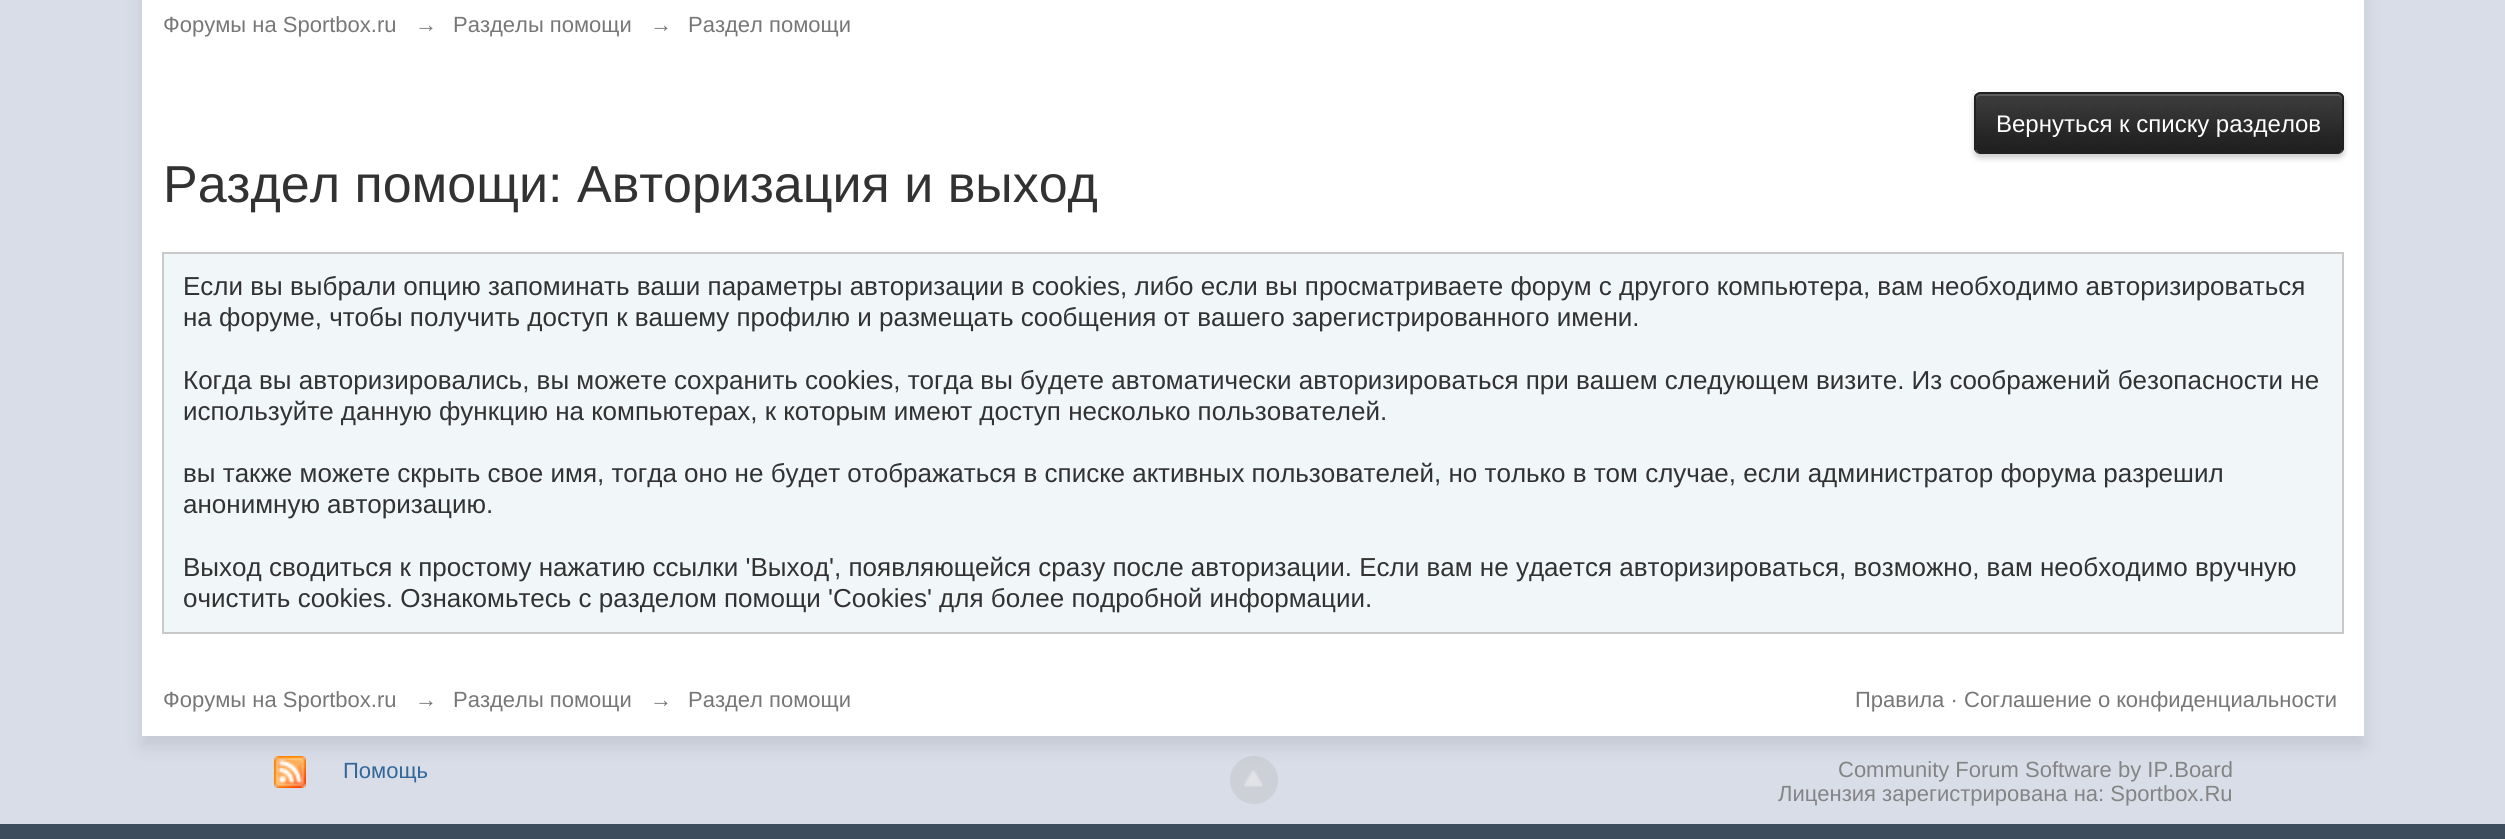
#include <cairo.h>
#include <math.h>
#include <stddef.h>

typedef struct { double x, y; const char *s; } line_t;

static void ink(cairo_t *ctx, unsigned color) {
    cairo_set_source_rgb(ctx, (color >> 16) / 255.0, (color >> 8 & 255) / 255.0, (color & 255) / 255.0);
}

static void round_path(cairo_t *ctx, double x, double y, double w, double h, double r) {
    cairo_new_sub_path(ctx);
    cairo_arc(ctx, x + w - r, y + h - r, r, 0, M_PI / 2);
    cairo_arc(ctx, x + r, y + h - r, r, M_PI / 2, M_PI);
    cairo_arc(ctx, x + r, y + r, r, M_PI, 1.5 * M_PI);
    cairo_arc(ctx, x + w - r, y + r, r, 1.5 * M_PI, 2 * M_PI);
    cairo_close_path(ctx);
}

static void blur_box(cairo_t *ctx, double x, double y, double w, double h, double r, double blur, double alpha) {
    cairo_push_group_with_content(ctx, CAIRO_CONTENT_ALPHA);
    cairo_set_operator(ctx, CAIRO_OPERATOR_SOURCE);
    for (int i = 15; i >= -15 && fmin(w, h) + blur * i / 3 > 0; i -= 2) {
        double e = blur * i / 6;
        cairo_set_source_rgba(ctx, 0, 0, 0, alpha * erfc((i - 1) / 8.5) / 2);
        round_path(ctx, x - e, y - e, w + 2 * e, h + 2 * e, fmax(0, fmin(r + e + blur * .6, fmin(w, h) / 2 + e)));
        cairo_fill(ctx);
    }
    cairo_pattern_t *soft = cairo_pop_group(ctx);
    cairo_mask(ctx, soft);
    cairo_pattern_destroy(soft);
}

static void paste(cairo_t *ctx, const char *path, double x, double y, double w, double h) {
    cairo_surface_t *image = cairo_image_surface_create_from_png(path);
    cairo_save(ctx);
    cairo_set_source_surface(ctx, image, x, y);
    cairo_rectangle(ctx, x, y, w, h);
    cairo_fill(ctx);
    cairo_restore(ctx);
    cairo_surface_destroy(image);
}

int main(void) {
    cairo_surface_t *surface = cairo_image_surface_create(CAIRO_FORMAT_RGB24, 2505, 839);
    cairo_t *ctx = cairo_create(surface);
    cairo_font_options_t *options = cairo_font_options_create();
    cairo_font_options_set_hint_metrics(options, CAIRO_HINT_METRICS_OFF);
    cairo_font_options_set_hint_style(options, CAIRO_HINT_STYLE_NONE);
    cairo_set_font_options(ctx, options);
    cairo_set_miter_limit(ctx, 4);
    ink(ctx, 0xD8DDE8);
    cairo_paint(ctx);
    ink(ctx, 0x000000);
    blur_box(ctx, 142, 0, 2222, 746, 0, 9, 0.1);
    ink(ctx, 0xFFFFFF);
    cairo_rectangle(ctx, 142, 0, 2222, 736);
    cairo_fill(ctx);
    cairo_select_font_face(ctx, "Liberation Sans", CAIRO_FONT_SLANT_NORMAL, CAIRO_FONT_WEIGHT_NORMAL);
    cairo_set_font_size(ctx, 22);
    ink(ctx, 0x777777);
    {
        static const line_t items[] = {
            {163, 32, "Форумы на Sportbox.ru"},
            {415, 32, "→"},
            {453, 32, "Разделы помощи"},
            {650, 32, "→"},
            {688, 32, "Раздел помощи"},
        };
        for (size_t i = 0; i < sizeof items / sizeof *items; i++) {
            cairo_move_to(ctx, items[i].x, items[i].y);
            cairo_show_text(ctx, items[i].s);
        }
    }
    ink(ctx, 0x000000);
    blur_box(ctx, 1974, 96, 370, 62, 6, 3, 0.2);
    ink(ctx, 0x212121);
    cairo_new_path(ctx);
    cairo_move_to(ctx, 1980, 94);
    cairo_line_to(ctx, 2338, 94);
    cairo_curve_to(ctx, 2340, 94, 2342, 96, 2342, 98);
    cairo_line_to(ctx, 2342, 148);
    cairo_curve_to(ctx, 2342, 151, 2340, 154, 2338, 154);
    cairo_line_to(ctx, 1980, 154);
    cairo_curve_to(ctx, 1978, 154, 1976, 151, 1976, 148);
    cairo_line_to(ctx, 1976, 98);
    cairo_curve_to(ctx, 1976, 96, 1978, 94, 1980, 94);
    cairo_close_path(ctx);
    cairo_fill(ctx);
    paste(ctx, "media/1.png", 1974, 94, 370, 56);
    ink(ctx, 0x5C5C5C);
    cairo_new_path(ctx);
    cairo_move_to(ctx, 1980, 96);
    cairo_line_to(ctx, 2338, 96);
    cairo_curve_to(ctx, 2340, 96, 2342, 98, 2342, 100);
    cairo_line_to(ctx, 2342, 98);
    cairo_curve_to(ctx, 2342, 96, 2340, 94, 2338, 94);
    cairo_line_to(ctx, 1980, 94);
    cairo_curve_to(ctx, 1978, 94, 1976, 96, 1976, 98);
    cairo_line_to(ctx, 1976, 100);
    cairo_curve_to(ctx, 1976, 98, 1978, 96, 1980, 96);
    cairo_close_path(ctx);
    cairo_fill(ctx);
    ink(ctx, 0x212121);
    cairo_set_fill_rule(ctx, CAIRO_FILL_RULE_EVEN_ODD);
    cairo_new_path(ctx);
    cairo_move_to(ctx, 1980, 92);
    cairo_line_to(ctx, 2338, 92);
    cairo_curve_to(ctx, 2341, 92, 2344, 95, 2344, 98);
    cairo_line_to(ctx, 2344, 148);
    cairo_curve_to(ctx, 2344, 151, 2341, 154, 2338, 154);
    cairo_line_to(ctx, 1980, 154);
    cairo_curve_to(ctx, 1977, 154, 1974, 151, 1974, 148);
    cairo_line_to(ctx, 1974, 98);
    cairo_curve_to(ctx, 1974, 95, 1977, 92, 1980, 92);
    cairo_close_path(ctx);
    cairo_move_to(ctx, 1980, 94);
    cairo_line_to(ctx, 2338, 94);
    cairo_curve_to(ctx, 2340, 94, 2342, 96, 2342, 98);
    cairo_line_to(ctx, 2342, 148);
    cairo_curve_to(ctx, 2342, 151, 2340, 154, 2338, 154);
    cairo_line_to(ctx, 1980, 154);
    cairo_curve_to(ctx, 1978, 154, 1976, 151, 1976, 148);
    cairo_line_to(ctx, 1976, 98);
    cairo_curve_to(ctx, 1976, 96, 1978, 94, 1980, 94);
    cairo_close_path(ctx);
    cairo_fill(ctx);
    cairo_set_font_size(ctx, 24);
    ink(ctx, 0xFFFFFF);
    cairo_move_to(ctx, 1996, 132);
    cairo_show_text(ctx, "Вернуться к списку разделов");
    cairo_set_font_size(ctx, 52);
    ink(ctx, 0x323232);
    cairo_move_to(ctx, 163, 202);
    cairo_show_text(ctx, "Раздел помощи: Авторизация и выход");
    ink(ctx, 0xF1F6F9);
    cairo_rectangle(ctx, 163, 253, 2180, 380);
    cairo_fill_preserve(ctx);
    ink(ctx, 0xC9C9C9);
    cairo_stroke(ctx);
    cairo_set_font_size(ctx, 26);
    ink(ctx, 0x323232);
    {
        static const line_t items[] = {
            {183, 295, "Если вы выбрали опцию запоминать ваши параметры авторизации в cookies, либо если вы просматриваете форум с другого компьютера, вам необходимо авторизироваться"},
            {183, 326, "на форуме, чтобы получить доступ к вашему профилю и размещать сообщения от вашего зарегистрированного имени."},
            {183, 389, "Когда вы авторизировались, вы можете сохранить cookies, тогда вы будете автоматически авторизироваться при вашем следующем визите. Из соображений безопасности не"},
            {183, 420, "используйте данную функцию на компьютерах, к которым имеют доступ несколько пользователей."},
            {183, 482, "вы также можете скрыть свое имя, тогда оно не будет отображаться в списке активных пользователей, но только в том случае, если администратор форума разрешил"},
            {183, 513, "анонимную авторизацию."},
            {183, 576, "Выход сводиться к простому нажатию ссылки 'Выход', появляющейся сразу после авторизации. Если вам не удается авторизироваться, возможно, вам необходимо вручную"},
            {183, 607, "очистить cookies. Ознакомьтесь с разделом помощи 'Cookies' для более подробной информации."},
        };
        for (size_t i = 0; i < sizeof items / sizeof *items; i++) {
            cairo_move_to(ctx, items[i].x, items[i].y);
            cairo_show_text(ctx, items[i].s);
        }
    }
    cairo_set_font_size(ctx, 22);
    ink(ctx, 0x777777);
    {
        static const line_t items[] = {
            {163, 707, "Форумы на Sportbox.ru"},
            {415, 707, "→"},
            {453, 707, "Разделы помощи"},
            {650, 707, "→"},
            {688, 707, "Раздел помощи"},
            {1855, 707, "Правила ·"},
            {1964, 707, "Соглашение о конфиденциальности"},
        };
        for (size_t i = 0; i < sizeof items / sizeof *items; i++) {
            cairo_move_to(ctx, items[i].x, items[i].y);
            cairo_show_text(ctx, items[i].s);
        }
    }
    paste(ctx, "media/2.png", 274, 756, 32, 32);
    ink(ctx, 0x336699);
    cairo_move_to(ctx, 343, 778);
    cairo_show_text(ctx, "Помощь");
    cairo_set_source_rgba(ctx, 0.741, 0.741, 0.741, 0.4);
    cairo_new_path(ctx);
    cairo_arc(ctx, 1254, 780, 24, 0, 2 * M_PI);
    cairo_fill(ctx);
    paste(ctx, "media/3.png", 1244, 770, 19, 17);
    ink(ctx, 0x848484);
    cairo_move_to(ctx, 1838, 777);
    cairo_show_text(ctx, "Community Forum Software by IP.Board");
    cairo_move_to(ctx, 1778, 801);
    cairo_show_text(ctx, "Лицензия зарегистрирована на: Sportbox.Ru");
    ink(ctx, 0x3D4D5E);
    cairo_rectangle(ctx, 0, 824, 2505, 15);
    cairo_fill(ctx);
    cairo_surface_write_to_png(surface, "image.png");
    cairo_font_options_destroy(options);
    cairo_destroy(ctx);
    cairo_surface_destroy(surface);
    return 0;
}
